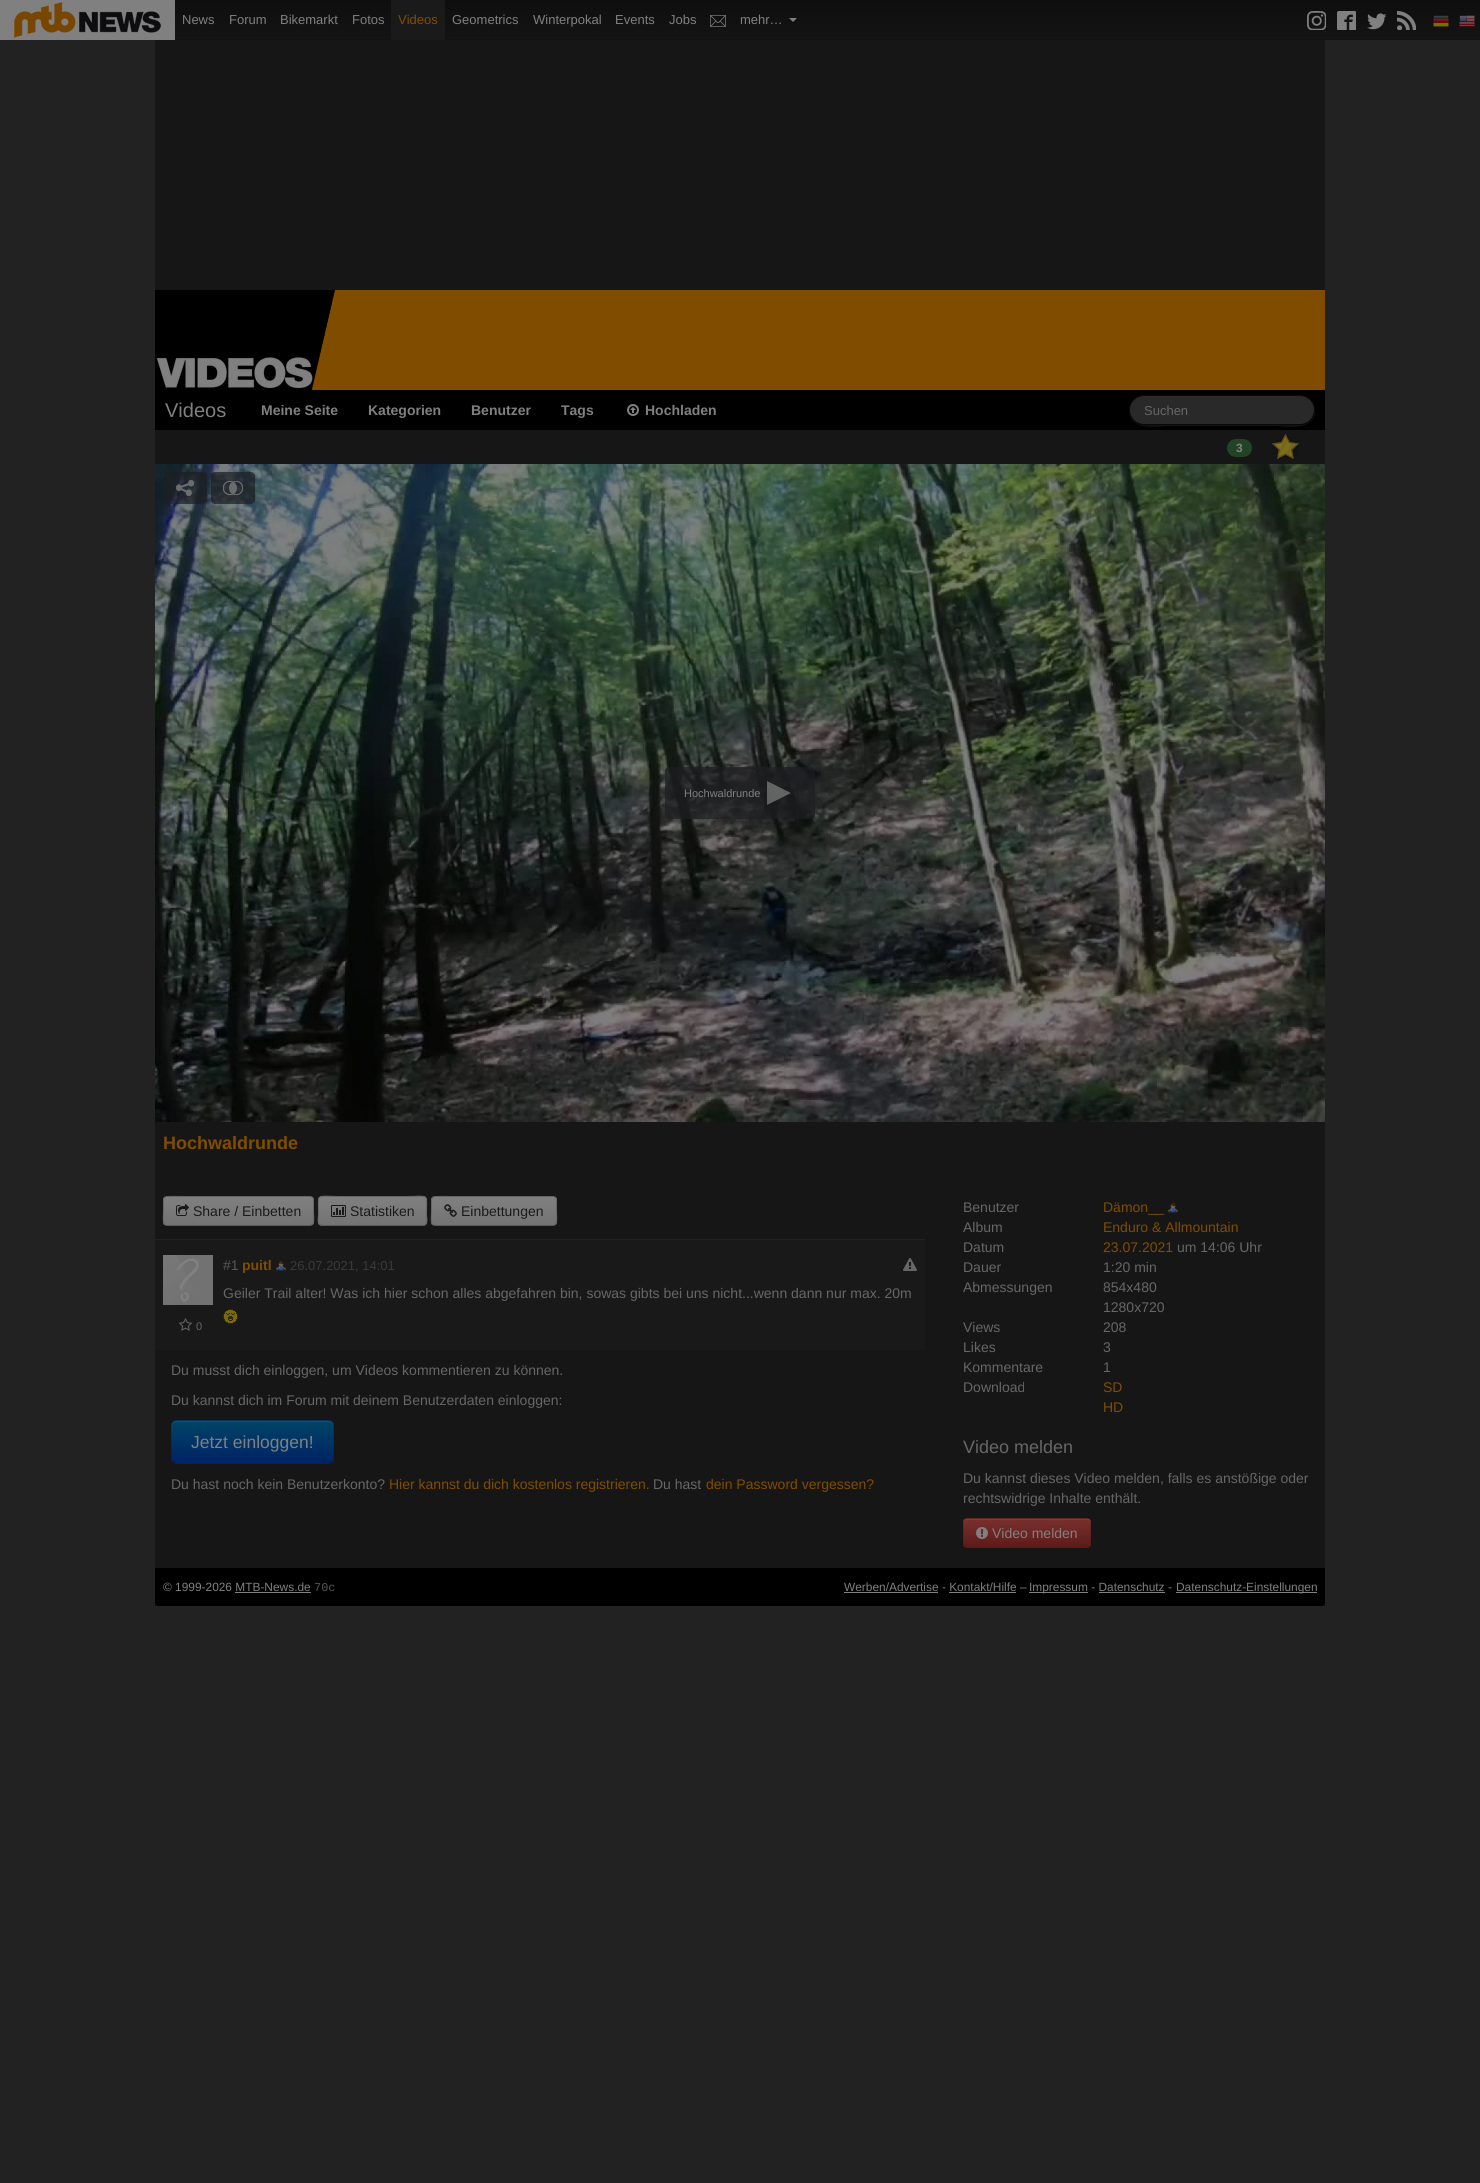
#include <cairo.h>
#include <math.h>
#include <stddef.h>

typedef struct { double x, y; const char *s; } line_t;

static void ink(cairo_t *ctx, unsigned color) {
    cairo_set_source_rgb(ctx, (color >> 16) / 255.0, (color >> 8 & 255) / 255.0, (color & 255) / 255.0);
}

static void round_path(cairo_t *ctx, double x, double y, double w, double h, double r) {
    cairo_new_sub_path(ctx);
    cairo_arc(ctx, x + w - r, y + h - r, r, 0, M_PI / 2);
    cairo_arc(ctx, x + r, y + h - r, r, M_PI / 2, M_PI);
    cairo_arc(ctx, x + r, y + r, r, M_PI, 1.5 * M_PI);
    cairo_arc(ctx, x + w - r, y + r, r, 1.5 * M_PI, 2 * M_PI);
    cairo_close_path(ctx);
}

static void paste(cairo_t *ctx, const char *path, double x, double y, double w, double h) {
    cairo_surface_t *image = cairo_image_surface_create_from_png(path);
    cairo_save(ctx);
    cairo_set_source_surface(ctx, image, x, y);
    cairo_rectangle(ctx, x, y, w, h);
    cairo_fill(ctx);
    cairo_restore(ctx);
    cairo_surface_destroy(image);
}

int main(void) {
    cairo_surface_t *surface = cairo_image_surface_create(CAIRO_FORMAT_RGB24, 1480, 2183);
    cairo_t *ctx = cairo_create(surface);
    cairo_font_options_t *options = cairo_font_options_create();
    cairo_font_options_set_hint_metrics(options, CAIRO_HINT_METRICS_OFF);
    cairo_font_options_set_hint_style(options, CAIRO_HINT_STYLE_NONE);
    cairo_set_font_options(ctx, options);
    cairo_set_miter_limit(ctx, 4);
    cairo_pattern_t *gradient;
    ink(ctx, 0x222222);
    cairo_paint(ctx);
    gradient = cairo_pattern_create_linear(740, 0, 740, 40);
    cairo_pattern_add_color_stop_rgba(gradient, 0, 0.055, 0.055, 0.055, 1);
    cairo_pattern_add_color_stop_rgba(gradient, 1, 0.078, 0.078, 0.078, 1);
    cairo_set_source(ctx, gradient);
    cairo_pattern_destroy(gradient);
    cairo_rectangle(ctx, 175, 0, 1305, 39);
    cairo_fill(ctx);
    ink(ctx, 0x121212);
    cairo_rectangle(ctx, 175, 39, 1305, 1);
    cairo_fill(ctx);
    ink(ctx, 0x808080);
    cairo_rectangle(ctx, 0, 0, 175, 40);
    cairo_fill(ctx);
    paste(ctx, "media/1.png", 14, 2, 147, 36);
    cairo_select_font_face(ctx, "Liberation Sans", CAIRO_FONT_SLANT_NORMAL, CAIRO_FONT_WEIGHT_NORMAL);
    cairo_set_font_size(ctx, 13);
    {
        static const line_t items[] = {
            {182, 24, "News"},
            {229, 24, "Forum"},
            {280, 24, "Bikemarkt"},
            {352, 24, "Fotos"},
        };
        for (size_t i = 0; i < sizeof items / sizeof *items; i++) {
            cairo_move_to(ctx, items[i].x, items[i].y);
            cairo_show_text(ctx, items[i].s);
        }
    }
    ink(ctx, 0x1A1A1A);
    cairo_rectangle(ctx, 391, 0, 54, 40);
    cairo_fill(ctx);
    ink(ctx, 0x804D00);
    cairo_move_to(ctx, 398, 24);
    cairo_show_text(ctx, "Videos");
    ink(ctx, 0x808080);
    {
        static const line_t items[] = {
            {452, 24, "Geometrics"},
            {533, 24, "Winterpokal"},
            {615, 24, "Events"},
            {669, 24, "Jobs"},
        };
        for (size_t i = 0; i < sizeof items / sizeof *items; i++) {
            cairo_move_to(ctx, items[i].x, items[i].y);
            cairo_show_text(ctx, items[i].s);
        }
    }
    paste(ctx, "media/2.png", 710, 15, 16, 12);
    cairo_move_to(ctx, 740, 24);
    cairo_show_text(ctx, "mehr…");
    cairo_new_path(ctx);
    cairo_move_to(ctx, 789, 18);
    cairo_line_to(ctx, 797, 18);
    cairo_line_to(ctx, 793, 22);
    cairo_close_path(ctx);
    cairo_fill(ctx);
    paste(ctx, "media/3.png", 1307, 11, 19, 19);
    paste(ctx, "media/4.png", 1337, 11, 19, 19);
    paste(ctx, "media/5.png", 1367, 13, 19, 17);
    paste(ctx, "media/6.png", 1397, 11, 19, 19);
    paste(ctx, "media/7.png", 1433, 15, 16, 12);
    paste(ctx, "media/8.png", 1459, 15, 16, 12);
    ink(ctx, 0x161616);
    cairo_rectangle(ctx, 155, 40, 1170, 1566);
    cairo_fill(ctx);
    ink(ctx, 0x804D00);
    cairo_rectangle(ctx, 155, 290, 1170, 100);
    cairo_fill(ctx);
    paste(ctx, "media/9.png", 155, 290, 180, 100);
    ink(ctx, 0x000000);
    cairo_rectangle(ctx, 155, 390, 1170, 40);
    cairo_fill(ctx);
    cairo_set_font_size(ctx, 20);
    ink(ctx, 0x808080);
    cairo_move_to(ctx, 165, 417);
    cairo_show_text(ctx, "Videos");
    cairo_select_font_face(ctx, "Liberation Sans", CAIRO_FONT_SLANT_NORMAL, CAIRO_FONT_WEIGHT_BOLD);
    cairo_set_font_size(ctx, 14);
    {
        static const line_t items[] = {
            {261, 415, "Meine Seite"},
            {368, 415, "Kategorien"},
            {471, 415, "Benutzer"},
            {561, 415, "Tags"},
        };
        for (size_t i = 0; i < sizeof items / sizeof *items; i++) {
            cairo_move_to(ctx, items[i].x, items[i].y);
            cairo_show_text(ctx, items[i].s);
        }
    }
    paste(ctx, "media/10.png", 627, 404, 12, 12);
    cairo_move_to(ctx, 645, 415);
    cairo_show_text(ctx, "Hochladen");
    ink(ctx, 0x131313);
    cairo_new_path(ctx);
    cairo_move_to(ctx, 1129, 410);
    cairo_curve_to(ctx, 1128, 432, 1159, 426, 1170, 426);
    cairo_line_to(ctx, 1274, 426);
    cairo_curve_to(ctx, 1285, 426, 1316, 432, 1315, 410);
    cairo_curve_to(ctx, 1315, 419, 1308, 425, 1300, 425);
    cairo_line_to(ctx, 1144, 425);
    cairo_curve_to(ctx, 1136, 425, 1129, 419, 1129, 410);
    cairo_close_path(ctx);
    cairo_fill(ctx);
    ink(ctx, 0x292929);
    round_path(ctx, 1129.5, 395.5, 185, 29, 14.5);
    cairo_fill_preserve(ctx);
    ink(ctx, 0x090909);
    cairo_set_line_width(ctx, 1);
    cairo_stroke(ctx);
    cairo_select_font_face(ctx, "Liberation Sans", CAIRO_FONT_SLANT_NORMAL, CAIRO_FONT_WEIGHT_NORMAL);
    cairo_set_font_size(ctx, 13);
    ink(ctx, 0x666666);
    cairo_move_to(ctx, 1144, 415);
    cairo_show_text(ctx, "Suchen");
    ink(ctx, 0x234424);
    round_path(ctx, 1227, 439, 25, 18, 9);
    cairo_fill(ctx);
    cairo_select_font_face(ctx, "Liberation Sans", CAIRO_FONT_SLANT_NORMAL, CAIRO_FONT_WEIGHT_BOLD);
    cairo_set_font_size(ctx, 12);
    ink(ctx, 0x808080);
    cairo_move_to(ctx, 1236, 452);
    cairo_show_text(ctx, "3");
    paste(ctx, "media/11.png", 1272, 433, 27, 27);
    paste(ctx, "media/16.png", 155, 464, 1170, 658);
    paste(ctx, "media/12.png", 163, 472, 44, 32);
    paste(ctx, "media/13.png", 176, 480, 18, 16);
    paste(ctx, "media/14.png", 211, 472, 44, 32);
    paste(ctx, "media/15.png", 223, 481, 20, 14);
    paste(ctx, "media/17.png", 665, 767, 150, 52);
    cairo_select_font_face(ctx, "Liberation Sans", CAIRO_FONT_SLANT_NORMAL, CAIRO_FONT_WEIGHT_NORMAL);
    cairo_set_font_size(ctx, 11);
    cairo_move_to(ctx, 684, 797);
    cairo_show_text(ctx, "Hochwaldrunde");
    paste(ctx, "media/18.png", 767, 781, 24, 24);
    cairo_select_font_face(ctx, "Liberation Sans", CAIRO_FONT_SLANT_NORMAL, CAIRO_FONT_WEIGHT_BOLD);
    cairo_set_font_size(ctx, 18);
    ink(ctx, 0x804D00);
    cairo_move_to(ctx, 163, 1149);
    cairo_show_text(ctx, "Hochwaldrunde");
    cairo_save(ctx);
    round_path(ctx, 163, 1196, 151, 30, 4);
    cairo_clip(ctx);
    gradient = cairo_pattern_create_linear(239, 1197, 239, 1225);
    cairo_pattern_add_color_stop_rgba(gradient, 0, 0.502, 0.502, 0.502, 1);
    cairo_pattern_add_color_stop_rgba(gradient, 1, 0.451, 0.451, 0.451, 1);
    cairo_set_source(ctx, gradient);
    cairo_pattern_destroy(gradient);
    cairo_rectangle(ctx, 163, 1197, 151, 28);
    cairo_fill(ctx);
    cairo_restore(ctx);
    cairo_set_source_rgba(ctx, 0.502, 0.502, 0.502, 0.2);
    cairo_new_path(ctx);
    cairo_move_to(ctx, 167, 1198);
    cairo_line_to(ctx, 310, 1198);
    cairo_curve_to(ctx, 312, 1198, 313, 1199, 313, 1201);
    cairo_curve_to(ctx, 313, 1199, 313, 1198, 311, 1197);
    cairo_line_to(ctx, 191, 1197);
    cairo_curve_to(ctx, 183, 1197, 164, 1192, 164, 1201);
    cairo_curve_to(ctx, 164, 1199, 165, 1198, 167, 1198);
    cairo_close_path(ctx);
    cairo_fill(ctx);
    cairo_new_path(ctx);
    cairo_move_to(ctx, 312.5, 1224.5);
    cairo_curve_to(ctx, 312, 1225, 311, 1225.5, 310, 1225.5);
    cairo_line_to(ctx, 167, 1225.5);
    cairo_curve_to(ctx, 166, 1225.5, 165, 1225, 164.5, 1224.5);
    ink(ctx, 0x5A5A5A);
    cairo_stroke(ctx);
    cairo_new_path(ctx);
    cairo_move_to(ctx, 164.5, 1224.5);
    cairo_curve_to(ctx, 162.5, 1222.5, 163.5, 1214, 163.5, 1211);
    cairo_line_to(ctx, 163.5, 1203.5);
    cairo_curve_to(ctx, 163.5, 1201, 163, 1196.5, 167, 1196.5);
    cairo_line_to(ctx, 310, 1196.5);
    cairo_curve_to(ctx, 314, 1196.5, 313.5, 1201, 313.5, 1203.5);
    cairo_line_to(ctx, 313.5, 1211);
    cairo_curve_to(ctx, 313.5, 1214, 314.5, 1222.5, 312.5, 1224.5);
    ink(ctx, 0x666666);
    cairo_stroke(ctx);
    paste(ctx, "media/19.png", 176, 1204, 13, 12);
    cairo_select_font_face(ctx, "Liberation Sans", CAIRO_FONT_SLANT_NORMAL, CAIRO_FONT_WEIGHT_NORMAL);
    cairo_set_font_size(ctx, 14);
    ink(ctx, 0x1A1A1A);
    cairo_move_to(ctx, 193, 1216);
    cairo_show_text(ctx, "Share / Einbetten");
    ink(ctx, 0x7B7B7B);
    round_path(ctx, 318, 1196, 109, 30, 4);
    cairo_fill(ctx);
    cairo_save(ctx);
    round_path(ctx, 318, 1196, 109, 30, 4);
    cairo_clip(ctx);
    gradient = cairo_pattern_create_linear(373, 1197, 373, 1225);
    cairo_pattern_add_color_stop_rgba(gradient, 0, 0.502, 0.502, 0.502, 1);
    cairo_pattern_add_color_stop_rgba(gradient, 1, 0.451, 0.451, 0.451, 1);
    cairo_set_source(ctx, gradient);
    cairo_pattern_destroy(gradient);
    cairo_rectangle(ctx, 318, 1197, 109, 28);
    cairo_fill(ctx);
    cairo_restore(ctx);
    cairo_set_source_rgba(ctx, 0.502, 0.502, 0.502, 0.2);
    cairo_new_path(ctx);
    cairo_move_to(ctx, 322, 1198);
    cairo_line_to(ctx, 423, 1198);
    cairo_curve_to(ctx, 425, 1198, 426, 1199, 426, 1201);
    cairo_curve_to(ctx, 426, 1192, 409, 1197, 406, 1197);
    cairo_line_to(ctx, 339, 1197);
    cairo_curve_to(ctx, 336, 1197, 319, 1192, 319, 1201);
    cairo_curve_to(ctx, 319, 1199, 320, 1198, 322, 1198);
    cairo_close_path(ctx);
    cairo_fill(ctx);
    cairo_new_path(ctx);
    cairo_move_to(ctx, 425.5, 1224.5);
    cairo_line_to(ctx, 423.5, 1225.5);
    cairo_line_to(ctx, 339, 1225.5);
    cairo_line_to(ctx, 322, 1225.5);
    cairo_line_to(ctx, 319.5, 1224.5);
    ink(ctx, 0x5A5A5A);
    cairo_stroke(ctx);
    cairo_new_path(ctx);
    cairo_move_to(ctx, 319.5, 1224.5);
    cairo_curve_to(ctx, 317, 1222, 318.5, 1217.5, 318.5, 1214.5);
    cairo_curve_to(ctx, 318.5, 1192.5, 315, 1196.5, 339, 1196.5);
    cairo_line_to(ctx, 406, 1196.5);
    cairo_curve_to(ctx, 430, 1196.5, 426.5, 1192.5, 426.5, 1214.5);
    cairo_curve_to(ctx, 426.5, 1217.5, 428, 1222, 425.5, 1224.5);
    ink(ctx, 0x666666);
    cairo_stroke(ctx);
    paste(ctx, "media/20.png", 331, 1205, 15, 12);
    ink(ctx, 0x1A1A1A);
    cairo_move_to(ctx, 350, 1216);
    cairo_show_text(ctx, "Statistiken");
    cairo_save(ctx);
    round_path(ctx, 431, 1196, 126, 30, 4);
    cairo_clip(ctx);
    gradient = cairo_pattern_create_linear(494, 1197, 494, 1225);
    cairo_pattern_add_color_stop_rgba(gradient, 0, 0.502, 0.502, 0.502, 1);
    cairo_pattern_add_color_stop_rgba(gradient, 1, 0.451, 0.451, 0.451, 1);
    cairo_set_source(ctx, gradient);
    cairo_pattern_destroy(gradient);
    cairo_rectangle(ctx, 431, 1197, 126, 28);
    cairo_fill(ctx);
    cairo_restore(ctx);
    cairo_set_source_rgba(ctx, 0.502, 0.502, 0.502, 0.2);
    cairo_new_path(ctx);
    cairo_move_to(ctx, 435, 1198);
    cairo_line_to(ctx, 553, 1198);
    cairo_curve_to(ctx, 555, 1198, 556, 1199, 556, 1201);
    cairo_curve_to(ctx, 556, 1199, 555, 1197, 553, 1197);
    cairo_line_to(ctx, 455, 1197);
    cairo_curve_to(ctx, 454, 1197, 432, 1192, 432, 1201);
    cairo_curve_to(ctx, 432, 1199, 433, 1198, 435, 1198);
    cairo_close_path(ctx);
    cairo_fill(ctx);
    cairo_new_path(ctx);
    cairo_move_to(ctx, 555.5, 1224.5);
    cairo_curve_to(ctx, 555, 1225, 554, 1225.5, 553, 1225.5);
    cairo_line_to(ctx, 435, 1225.5);
    cairo_curve_to(ctx, 434, 1225.5, 433, 1225, 432.5, 1224.5);
    ink(ctx, 0x5A5A5A);
    cairo_stroke(ctx);
    cairo_new_path(ctx);
    cairo_move_to(ctx, 432.5, 1224.5);
    cairo_curve_to(ctx, 430.5, 1222.5, 431.5, 1214, 431.5, 1211);
    cairo_line_to(ctx, 431.5, 1203.5);
    cairo_curve_to(ctx, 431.5, 1201, 431, 1196.5, 435, 1196.5);
    cairo_line_to(ctx, 553, 1196.5);
    cairo_curve_to(ctx, 557, 1196.5, 556.5, 1201, 556.5, 1203.5);
    cairo_line_to(ctx, 556.5, 1211);
    cairo_curve_to(ctx, 556.5, 1214, 557.5, 1222.5, 555.5, 1224.5);
    ink(ctx, 0x666666);
    cairo_stroke(ctx);
    paste(ctx, "media/21.png", 444, 1204, 13, 13);
    ink(ctx, 0x1A1A1A);
    cairo_move_to(ctx, 461, 1216);
    cairo_show_text(ctx, "Einbettungen");
    ink(ctx, 0x191919);
    cairo_rectangle(ctx, 155, 1240, 770, 110);
    cairo_fill(ctx);
    ink(ctx, 0x222222);
    cairo_rectangle(ctx, 155, 1239, 770, 1);
    cairo_fill(ctx);
    ink(ctx, 0x555555);
    cairo_move_to(ctx, 223, 1270);
    cairo_show_text(ctx, "#1");
    cairo_select_font_face(ctx, "Liberation Sans", CAIRO_FONT_SLANT_NORMAL, CAIRO_FONT_WEIGHT_BOLD);
    ink(ctx, 0x804D00);
    cairo_move_to(ctx, 242, 1270);
    cairo_show_text(ctx, "puitl");
    paste(ctx, "media/22.png", 276, 1261, 10, 10);
    cairo_select_font_face(ctx, "Liberation Sans", CAIRO_FONT_SLANT_NORMAL, CAIRO_FONT_WEIGHT_NORMAL);
    cairo_set_font_size(ctx, 13);
    ink(ctx, 0x393939);
    cairo_move_to(ctx, 290, 1270);
    cairo_show_text(ctx, "26.07.2021, 14:01");
    paste(ctx, "media/23.png", 903, 1258, 14, 13);
    cairo_set_font_size(ctx, 14);
    ink(ctx, 0x666666);
    cairo_move_to(ctx, 223, 1298);
    cairo_show_text(ctx, "Geiler Trail alter! Was ich hier schon alles abgefahren bin, sowas gibts bei uns nicht...wenn dann nur max. 20m");
    paste(ctx, "media/24.png", 223, 1309, 15, 15);
    paste(ctx, "media/25.png", 163, 1255, 50, 50);
    paste(ctx, "media/26.png", 179, 1318, 13, 13);
    cairo_set_font_size(ctx, 11);
    cairo_move_to(ctx, 196, 1330);
    cairo_show_text(ctx, "0");
    cairo_set_font_size(ctx, 14);
    cairo_move_to(ctx, 171, 1375);
    cairo_show_text(ctx, "Du musst dich einloggen, um Videos kommentieren zu können.");
    cairo_move_to(ctx, 171, 1405);
    cairo_show_text(ctx, "Du kannst dich im Forum mit deinem Benutzerdaten einloggen:");
    ink(ctx, 0x003766);
    round_path(ctx, 171, 1420, 163, 44, 6);
    cairo_fill(ctx);
    cairo_save(ctx);
    round_path(ctx, 171, 1420, 163, 44, 6);
    cairo_clip(ctx);
    gradient = cairo_pattern_create_linear(253, 1421, 253, 1463);
    cairo_pattern_add_color_stop_rgba(gradient, 0, 0, 0.267, 0.4, 1);
    cairo_pattern_add_color_stop_rgba(gradient, 1, 0, 0.133, 0.4, 1);
    cairo_set_source(ctx, gradient);
    cairo_pattern_destroy(gradient);
    cairo_rectangle(ctx, 171, 1421, 163, 42);
    cairo_fill(ctx);
    cairo_restore(ctx);
    ink(ctx, 0x1A506B);
    cairo_new_path(ctx);
    cairo_move_to(ctx, 177, 1422);
    cairo_line_to(ctx, 328, 1422);
    cairo_curve_to(ctx, 331, 1422, 333, 1424, 333, 1427);
    cairo_line_to(ctx, 333, 1426);
    cairo_curve_to(ctx, 333, 1423, 331, 1421, 328, 1421);
    cairo_line_to(ctx, 177, 1421);
    cairo_curve_to(ctx, 174, 1421, 172, 1423, 172, 1426);
    cairo_line_to(ctx, 172, 1427);
    cairo_curve_to(ctx, 172, 1424, 174, 1422, 177, 1422);
    cairo_close_path(ctx);
    cairo_fill(ctx);
    cairo_new_path(ctx);
    cairo_move_to(ctx, 332, 1462);
    cairo_curve_to(ctx, 331, 1463, 329.5, 1463.5, 328, 1463.5);
    cairo_line_to(ctx, 177, 1463.5);
    cairo_curve_to(ctx, 175.5, 1463.5, 174, 1463, 173, 1462);
    cairo_set_source_rgba(ctx, 0, 0, 0, 0.25);
    cairo_stroke(ctx);
    cairo_new_path(ctx);
    cairo_move_to(ctx, 173, 1462);
    cairo_curve_to(ctx, 170, 1458.5, 171.5, 1451, 171.5, 1447.5);
    cairo_curve_to(ctx, 171.5, 1415, 166.5, 1420.5, 202, 1420.5);
    cairo_line_to(ctx, 303, 1420.5);
    cairo_curve_to(ctx, 338.5, 1420.5, 333.5, 1415, 333.5, 1447.5);
    cairo_curve_to(ctx, 333.5, 1451, 335, 1458.5, 332, 1462);
    cairo_set_source_rgba(ctx, 0, 0, 0, 0.1);
    cairo_stroke(ctx);
    cairo_set_font_size(ctx, 17.5);
    ink(ctx, 0x808080);
    cairo_move_to(ctx, 191, 1448);
    cairo_show_text(ctx, "Jetzt einloggen!");
    cairo_set_font_size(ctx, 14);
    ink(ctx, 0x666666);
    cairo_move_to(ctx, 171, 1489);
    cairo_show_text(ctx, "Du hast noch kein Benutzerkonto?");
    ink(ctx, 0x804D00);
    cairo_move_to(ctx, 389, 1489);
    cairo_show_text(ctx, "Hier kannst du dich kostenlos registrieren.");
    ink(ctx, 0x666666);
    cairo_move_to(ctx, 653, 1489);
    cairo_show_text(ctx, "Du hast");
    ink(ctx, 0x804D00);
    cairo_move_to(ctx, 706, 1489);
    cairo_show_text(ctx, "dein Password vergessen?");
    ink(ctx, 0x666666);
    cairo_move_to(ctx, 963, 1212);
    cairo_show_text(ctx, "Benutzer");
    ink(ctx, 0x804D00);
    cairo_move_to(ctx, 1103, 1212);
    cairo_show_text(ctx, "Dämon__");
    paste(ctx, "media/27.png", 1168, 1203, 10, 10);
    ink(ctx, 0x666666);
    cairo_move_to(ctx, 963, 1232);
    cairo_show_text(ctx, "Album");
    ink(ctx, 0x804D00);
    cairo_move_to(ctx, 1103, 1232);
    cairo_show_text(ctx, "Enduro & Allmountain");
    ink(ctx, 0x666666);
    cairo_move_to(ctx, 963, 1252);
    cairo_show_text(ctx, "Datum");
    ink(ctx, 0x804D00);
    cairo_move_to(ctx, 1103, 1252);
    cairo_show_text(ctx, "23.07.2021");
    ink(ctx, 0x666666);
    {
        static const line_t items[] = {
            {1177, 1252, "um 14:06 Uhr"},
            {963, 1272, "Dauer"},
            {1103, 1272, "1:20 min"},
            {963, 1292, "Abmessungen"},
            {1103, 1292, "854x480"},
            {1103, 1312, "1280x720"},
            {963, 1332, "Views"},
            {1103, 1332, "208"},
            {963, 1352, "Likes"},
            {1103, 1352, "3"},
            {963, 1372, "Kommentare"},
            {1103, 1372, "1"},
            {963, 1392, "Download"},
        };
        for (size_t i = 0; i < sizeof items / sizeof *items; i++) {
            cairo_move_to(ctx, items[i].x, items[i].y);
            cairo_show_text(ctx, items[i].s);
        }
    }
    ink(ctx, 0x804D00);
    cairo_move_to(ctx, 1103, 1392);
    cairo_show_text(ctx, "SD");
    cairo_move_to(ctx, 1103, 1412);
    cairo_show_text(ctx, "HD");
    cairo_set_font_size(ctx, 18);
    ink(ctx, 0x666666);
    cairo_move_to(ctx, 963, 1453);
    cairo_show_text(ctx, "Video melden");
    cairo_set_font_size(ctx, 14);
    cairo_move_to(ctx, 963, 1483);
    cairo_show_text(ctx, "Du kannst dieses Video melden, falls es anstößige oder");
    cairo_move_to(ctx, 963, 1503);
    cairo_show_text(ctx, "rechtswidrige Inhalte enthält.");
    ink(ctx, 0x6D2825);
    round_path(ctx, 963, 1518, 128, 30, 4);
    cairo_fill(ctx);
    cairo_save(ctx);
    round_path(ctx, 963, 1518, 128, 30, 4);
    cairo_clip(ctx);
    gradient = cairo_pattern_create_linear(1027, 1519, 1027, 1547);
    cairo_pattern_add_color_stop_rgba(gradient, 0, 0.467, 0.188, 0.18, 1);
    cairo_pattern_add_color_stop_rgba(gradient, 1, 0.373, 0.106, 0.094, 1);
    cairo_set_source(ctx, gradient);
    cairo_pattern_destroy(gradient);
    cairo_rectangle(ctx, 963, 1519, 128, 28);
    cairo_fill(ctx);
    cairo_restore(ctx);
    ink(ctx, 0x793F3E);
    cairo_new_path(ctx);
    cairo_move_to(ctx, 967, 1520);
    cairo_line_to(ctx, 1087, 1520);
    cairo_curve_to(ctx, 1089, 1520, 1090, 1521, 1090, 1523);
    cairo_curve_to(ctx, 1090, 1521, 1090, 1519, 1088, 1519);
    cairo_line_to(ctx, 967, 1519);
    cairo_curve_to(ctx, 965, 1519, 964, 1521, 964, 1523);
    cairo_curve_to(ctx, 964, 1521, 965, 1520, 967, 1520);
    cairo_close_path(ctx);
    cairo_fill(ctx);
    cairo_new_path(ctx);
    cairo_move_to(ctx, 1089.5, 1546.5);
    cairo_curve_to(ctx, 1089, 1547, 1088, 1547.5, 1087, 1547.5);
    cairo_line_to(ctx, 967, 1547.5);
    cairo_curve_to(ctx, 966, 1547.5, 965, 1547, 964.5, 1546.5);
    cairo_set_source_rgba(ctx, 0, 0, 0, 0.25);
    cairo_stroke(ctx);
    cairo_new_path(ctx);
    cairo_move_to(ctx, 964.5, 1546.5);
    cairo_curve_to(ctx, 962.5, 1544.5, 963.5, 1536, 963.5, 1533);
    cairo_line_to(ctx, 963.5, 1525.5);
    cairo_curve_to(ctx, 963.5, 1523, 963, 1518.5, 967, 1518.5);
    cairo_line_to(ctx, 1087, 1518.5);
    cairo_curve_to(ctx, 1091, 1518.5, 1090.5, 1523, 1090.5, 1525.5);
    cairo_line_to(ctx, 1090.5, 1533);
    cairo_curve_to(ctx, 1090.5, 1536, 1091.5, 1544.5, 1089.5, 1546.5);
    cairo_set_source_rgba(ctx, 0, 0, 0, 0.1);
    cairo_stroke(ctx);
    paste(ctx, "media/28.png", 976, 1527, 12, 12);
    ink(ctx, 0x808080);
    cairo_move_to(ctx, 992, 1538);
    cairo_show_text(ctx, "Video melden");
    ink(ctx, 0x000000);
    cairo_new_path(ctx);
    cairo_move_to(ctx, 155, 1568);
    cairo_line_to(ctx, 1325, 1568);
    cairo_line_to(ctx, 1325, 1603);
    cairo_curve_to(ctx, 1325, 1604.5, 1323.5, 1606, 1322, 1606);
    cairo_line_to(ctx, 158, 1606);
    cairo_curve_to(ctx, 156.5, 1606, 155, 1604.5, 155, 1603);
    cairo_close_path(ctx);
    cairo_fill(ctx);
    cairo_set_font_size(ctx, 11.9);
    ink(ctx, 0x808080);
    cairo_move_to(ctx, 163, 1591);
    cairo_show_text(ctx, "© 1999-2026 MTB-News.de");
    cairo_select_font_face(ctx, "Liberation Mono", CAIRO_FONT_SLANT_NORMAL, CAIRO_FONT_WEIGHT_NORMAL);
    ink(ctx, 0x555555);
    cairo_move_to(ctx, 314, 1591);
    cairo_show_text(ctx, "70c");
    ink(ctx, 0x808080);
    cairo_rectangle(ctx, 235, 1592, 76, 1);
    cairo_fill(ctx);
    cairo_select_font_face(ctx, "Liberation Sans", CAIRO_FONT_SLANT_NORMAL, CAIRO_FONT_WEIGHT_NORMAL);
    cairo_move_to(ctx, 844, 1591);
    cairo_show_text(ctx, "Werben/Advertise - Kontakt/Hilfe –");
    cairo_rectangle(ctx, 844, 1592, 94, 1);
    cairo_fill(ctx);
    cairo_rectangle(ctx, 1029, 1592, 59, 1);
    cairo_fill(ctx);
    cairo_move_to(ctx, 1029, 1591);
    cairo_show_text(ctx, "Impressum - Datenschutz -");
    cairo_rectangle(ctx, 1176, 1592, 141, 1);
    cairo_fill(ctx);
    cairo_move_to(ctx, 1176, 1591);
    cairo_show_text(ctx, "Datenschutz-Einstellungen");
    cairo_rectangle(ctx, 949, 1592, 67, 1);
    cairo_fill(ctx);
    cairo_rectangle(ctx, 1099, 1592, 66, 1);
    cairo_fill(ctx);
    cairo_surface_write_to_png(surface, "image.png");
    cairo_font_options_destroy(options);
    cairo_destroy(ctx);
    cairo_surface_destroy(surface);
    return 0;
}
